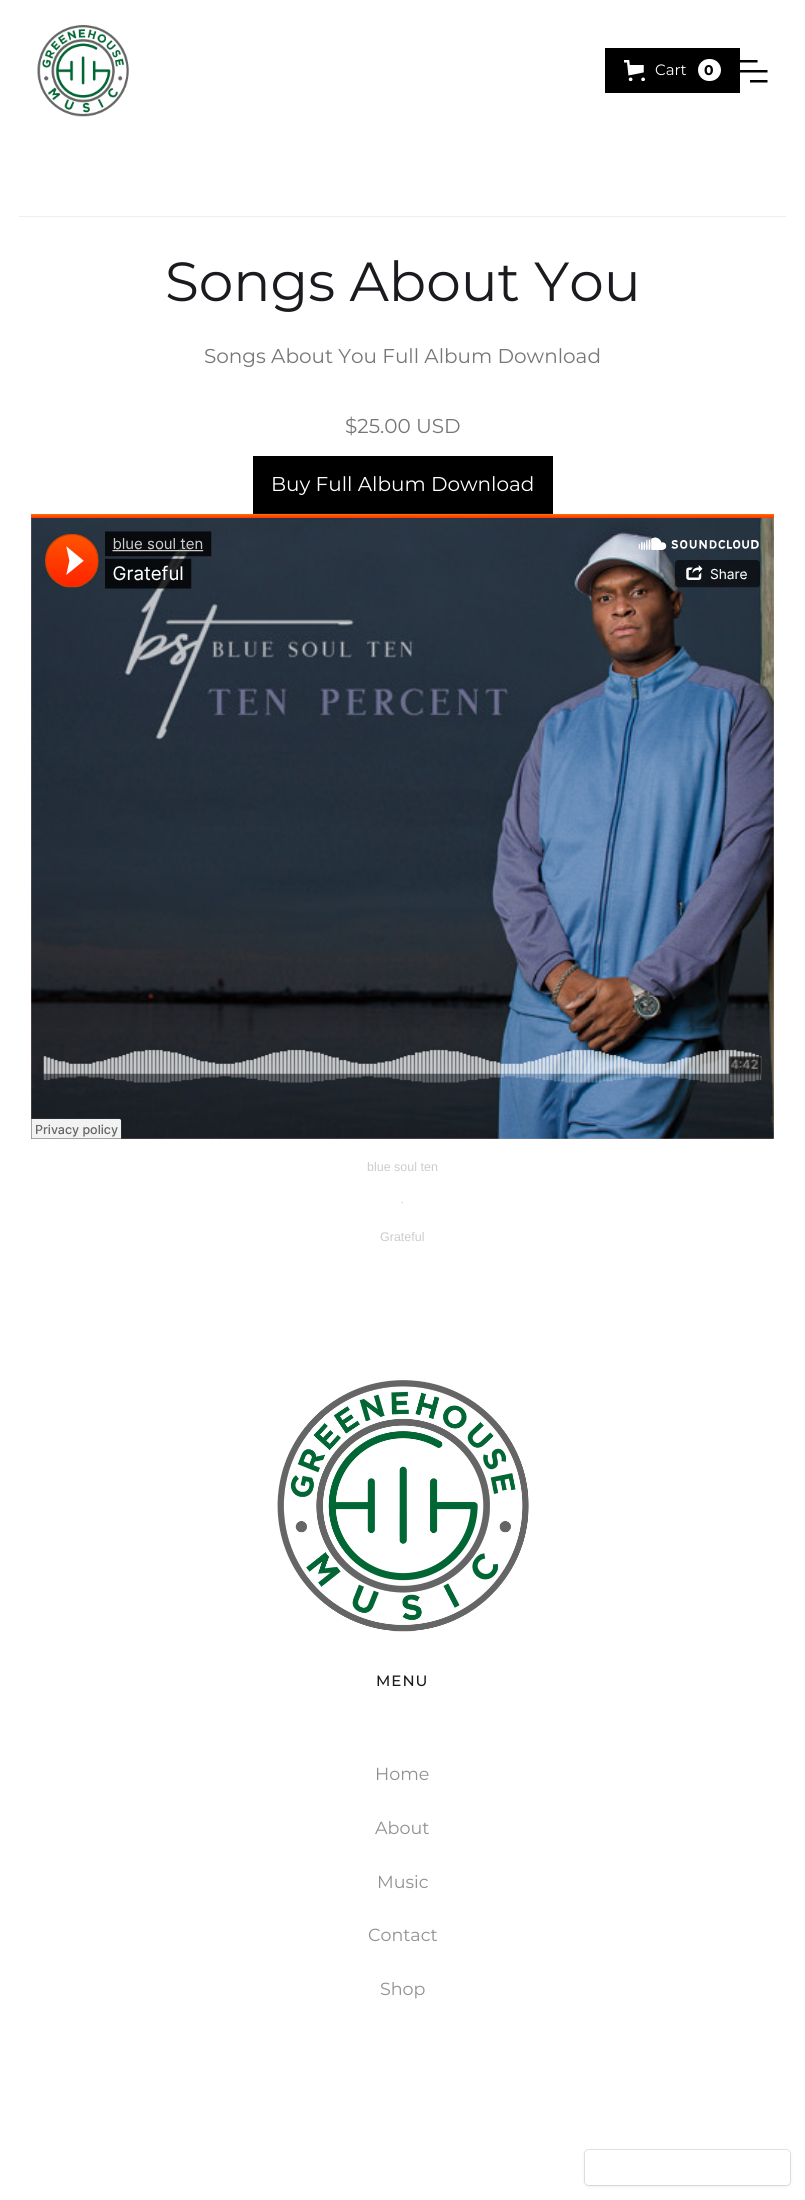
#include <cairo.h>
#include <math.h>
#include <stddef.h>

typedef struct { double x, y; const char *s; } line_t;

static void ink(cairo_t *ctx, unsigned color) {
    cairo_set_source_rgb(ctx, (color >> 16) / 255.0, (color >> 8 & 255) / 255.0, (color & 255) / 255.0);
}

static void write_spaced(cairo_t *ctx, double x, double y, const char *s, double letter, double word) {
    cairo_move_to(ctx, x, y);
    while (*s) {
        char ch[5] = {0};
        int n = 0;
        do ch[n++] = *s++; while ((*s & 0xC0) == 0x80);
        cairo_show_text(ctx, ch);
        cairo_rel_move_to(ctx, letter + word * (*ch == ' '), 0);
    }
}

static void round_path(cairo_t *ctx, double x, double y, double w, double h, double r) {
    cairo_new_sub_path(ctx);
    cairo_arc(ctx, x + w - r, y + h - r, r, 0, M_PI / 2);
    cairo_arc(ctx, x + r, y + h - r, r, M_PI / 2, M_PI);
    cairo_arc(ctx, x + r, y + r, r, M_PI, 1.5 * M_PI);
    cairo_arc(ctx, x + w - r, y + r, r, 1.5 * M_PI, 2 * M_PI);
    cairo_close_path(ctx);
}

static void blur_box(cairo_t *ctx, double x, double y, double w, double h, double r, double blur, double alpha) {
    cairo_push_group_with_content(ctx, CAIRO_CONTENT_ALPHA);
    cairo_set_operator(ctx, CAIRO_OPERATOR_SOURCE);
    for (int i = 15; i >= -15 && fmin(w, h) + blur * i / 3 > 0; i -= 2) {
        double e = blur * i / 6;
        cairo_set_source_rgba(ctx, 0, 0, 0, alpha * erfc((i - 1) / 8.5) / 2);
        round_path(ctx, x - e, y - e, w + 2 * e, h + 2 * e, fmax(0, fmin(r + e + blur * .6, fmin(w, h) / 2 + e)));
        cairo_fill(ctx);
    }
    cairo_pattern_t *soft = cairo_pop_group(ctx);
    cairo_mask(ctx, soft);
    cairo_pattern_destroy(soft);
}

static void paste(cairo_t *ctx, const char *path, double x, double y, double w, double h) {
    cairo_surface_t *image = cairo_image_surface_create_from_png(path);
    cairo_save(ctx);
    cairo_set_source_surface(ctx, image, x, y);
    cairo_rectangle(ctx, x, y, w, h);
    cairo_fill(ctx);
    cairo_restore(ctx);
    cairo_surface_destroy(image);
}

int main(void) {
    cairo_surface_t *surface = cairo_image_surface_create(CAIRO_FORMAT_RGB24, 805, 2200);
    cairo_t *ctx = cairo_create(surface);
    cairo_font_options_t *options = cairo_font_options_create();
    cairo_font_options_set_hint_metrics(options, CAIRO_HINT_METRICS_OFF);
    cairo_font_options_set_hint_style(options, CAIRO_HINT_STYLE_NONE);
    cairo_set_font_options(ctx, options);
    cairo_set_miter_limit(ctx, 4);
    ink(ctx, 0xFFFFFF);
    cairo_paint(ctx);
    paste(ctx, "media/1.png", 37, 25, 92, 92);
    ink(ctx, 0x000000);
    cairo_rectangle(ctx, 605, 48, 135, 45);
    cairo_fill(ctx);
    paste(ctx, "media/2.png", 624, 60, 21, 21);
    cairo_select_font_face(ctx, "Montserrat", CAIRO_FONT_SLANT_NORMAL, CAIRO_FONT_WEIGHT_NORMAL);
    cairo_set_font_size(ctx, 15);
    ink(ctx, 0xFFFFFF);
    cairo_move_to(ctx, 655, 75);
    cairo_show_text(ctx, "Cart");
    round_path(ctx, 698, 59, 23, 22, 11);
    cairo_fill(ctx);
    cairo_select_font_face(ctx, "Montserrat", CAIRO_FONT_SLANT_NORMAL, CAIRO_FONT_WEIGHT_BOLD);
    cairo_set_font_size(ctx, 14);
    ink(ctx, 0x000000);
    cairo_move_to(ctx, 704, 75);
    cairo_show_text(ctx, "0");
    paste(ctx, "media/3.png", 740, 60, 28, 23);
    ink(ctx, 0xEEEEEE);
    cairo_rectangle(ctx, 19, 216, 767, 1);
    cairo_fill(ctx);
    cairo_select_font_face(ctx, "Montserrat", CAIRO_FONT_SLANT_NORMAL, CAIRO_FONT_WEIGHT_NORMAL);
    cairo_set_font_size(ctx, 55);
    ink(ctx, 0x1A1B1F);
    cairo_move_to(ctx, 165, 301);
    cairo_show_text(ctx, "Songs About You");
    cairo_set_font_size(ctx, 20);
    ink(ctx, 0x767679);
    cairo_move_to(ctx, 204, 363);
    cairo_show_text(ctx, "Songs About You Full Album Download");
    cairo_move_to(ctx, 345, 433);
    cairo_show_text(ctx, "$25.00 USD");
    ink(ctx, 0x000000);
    cairo_rectangle(ctx, 253, 456, 300, 58);
    cairo_fill(ctx);
    ink(ctx, 0xFFFFFF);
    cairo_move_to(ctx, 271, 491);
    cairo_show_text(ctx, "Buy Full Album Download");
    paste(ctx, "media/4.png", 31, 513, 743, 626);
    cairo_select_font_face(ctx, "Liberation Sans", CAIRO_FONT_SLANT_NORMAL, CAIRO_FONT_WEIGHT_NORMAL);
    cairo_set_font_size(ctx, 12.5);
    ink(ctx, 0xCCCCCC);
    {
        static const line_t items[] = {
            {367, 1171, "blue soul ten"},
            {400, 1206, "·"},
            {380, 1241, "Grateful"},
        };
        for (size_t i = 0; i < sizeof items / sizeof *items; i++) {
            cairo_move_to(ctx, items[i].x, items[i].y);
            cairo_show_text(ctx, items[i].s);
        }
    }
    paste(ctx, "media/5.png", 277, 1380, 252, 252);
    cairo_select_font_face(ctx, "Montserrat Medium", CAIRO_FONT_SLANT_NORMAL, CAIRO_FONT_WEIGHT_NORMAL);
    cairo_set_font_size(ctx, 15);
    ink(ctx, 0x1A1B1F);
    write_spaced(ctx, 376, 1686, "MENU", 1, 0);
    cairo_select_font_face(ctx, "Montserrat", CAIRO_FONT_SLANT_NORMAL, CAIRO_FONT_WEIGHT_NORMAL);
    cairo_set_font_size(ctx, 17.5);
    ink(ctx, 0x8E9094);
    {
        static const line_t items[] = {
            {375, 1780, "Home"},
            {375, 1834, "About"},
            {377, 1888, "Music"},
            {368, 1941, "Contact"},
            {380, 1995, "Shop"},
        };
        for (size_t i = 0; i < sizeof items / sizeof *items; i++) {
            cairo_move_to(ctx, items[i].x, items[i].y);
            cairo_show_text(ctx, items[i].s);
        }
    }
    ink(ctx, 0x000000);
    blur_box(ctx, 585, 2151, 205, 35, 4, 2, 0.1);
    round_path(ctx, 584.5, 2149.5, 206, 36, 4.5);
    cairo_set_source_rgba(ctx, 0, 0, 0, 0.1);
    cairo_set_line_width(ctx, 1);
    cairo_stroke(ctx);
    ink(ctx, 0xFFFFFF);
    round_path(ctx, 585, 2150, 205, 35, 4);
    cairo_fill(ctx);
    cairo_surface_write_to_png(surface, "image.png");
    cairo_font_options_destroy(options);
    cairo_destroy(ctx);
    cairo_surface_destroy(surface);
    return 0;
}
